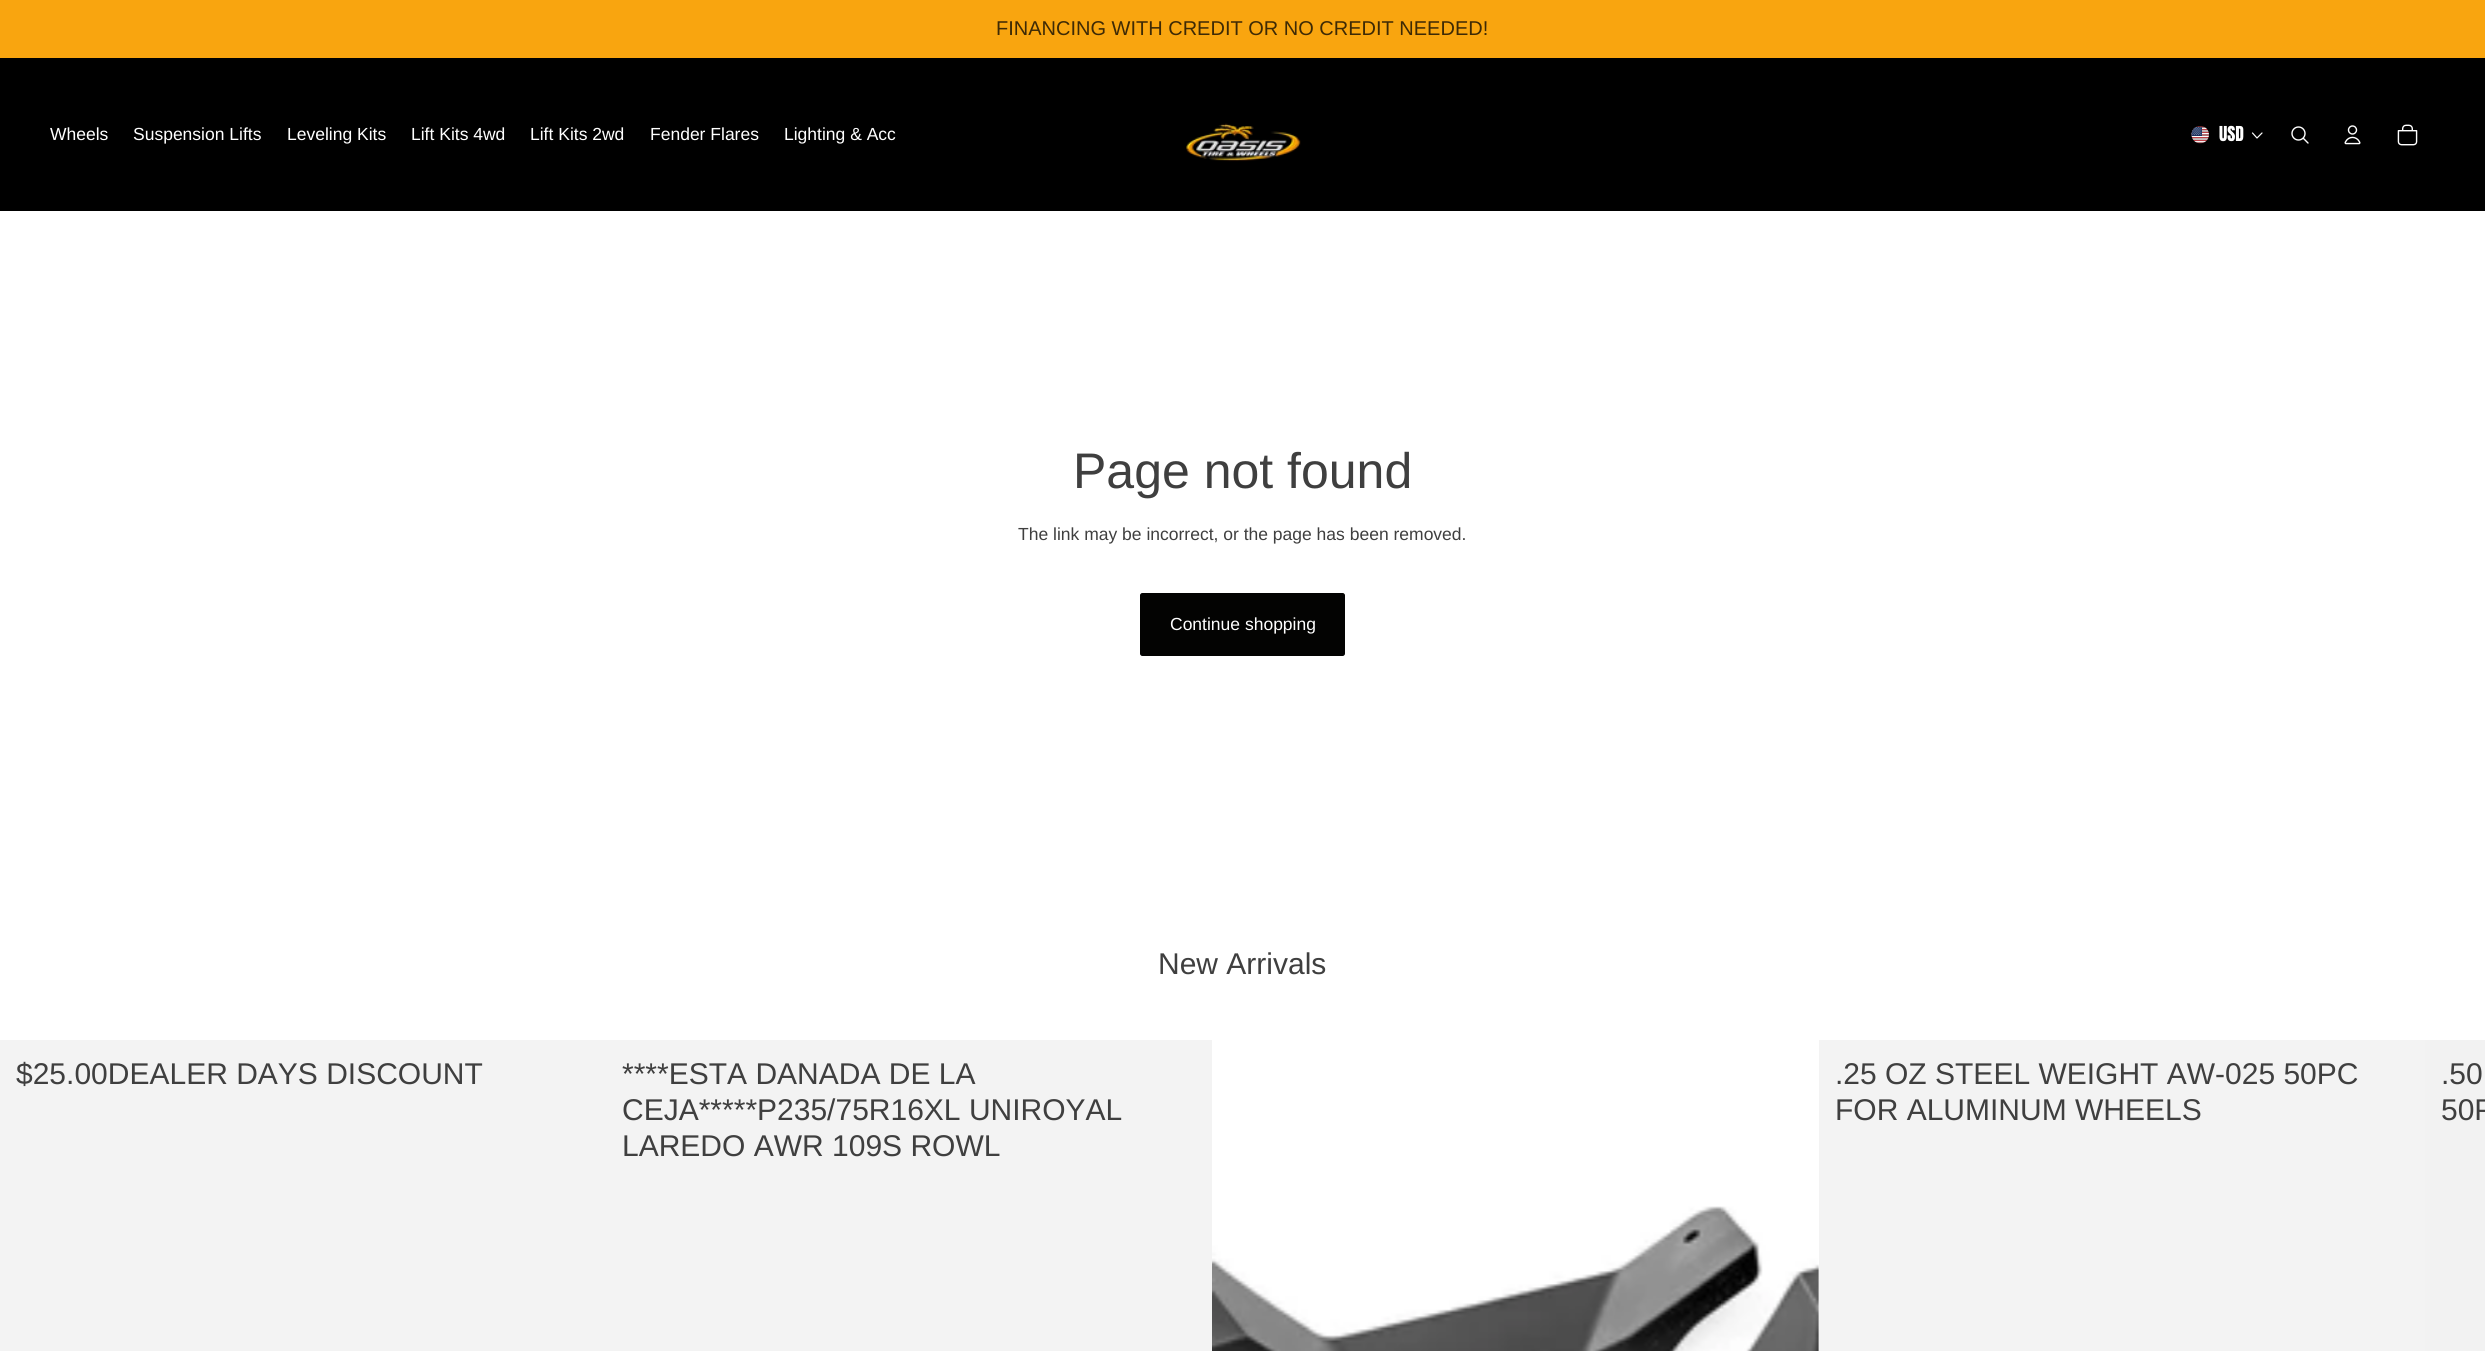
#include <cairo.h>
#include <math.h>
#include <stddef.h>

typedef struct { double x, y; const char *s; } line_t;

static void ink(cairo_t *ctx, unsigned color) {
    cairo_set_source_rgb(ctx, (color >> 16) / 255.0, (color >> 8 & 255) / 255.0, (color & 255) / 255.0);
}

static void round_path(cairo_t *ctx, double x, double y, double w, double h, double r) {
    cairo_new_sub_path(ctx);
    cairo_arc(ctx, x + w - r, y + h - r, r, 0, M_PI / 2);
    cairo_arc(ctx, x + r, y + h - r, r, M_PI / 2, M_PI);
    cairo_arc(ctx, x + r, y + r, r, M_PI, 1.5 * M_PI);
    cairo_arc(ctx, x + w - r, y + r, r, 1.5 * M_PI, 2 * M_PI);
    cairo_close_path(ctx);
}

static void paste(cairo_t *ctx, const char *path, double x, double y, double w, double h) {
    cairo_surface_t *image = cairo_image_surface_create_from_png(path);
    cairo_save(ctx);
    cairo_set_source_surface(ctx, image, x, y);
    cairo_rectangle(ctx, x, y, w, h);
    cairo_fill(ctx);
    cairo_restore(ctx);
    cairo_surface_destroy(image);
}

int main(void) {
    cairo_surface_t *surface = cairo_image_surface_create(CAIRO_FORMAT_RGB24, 2485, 1351);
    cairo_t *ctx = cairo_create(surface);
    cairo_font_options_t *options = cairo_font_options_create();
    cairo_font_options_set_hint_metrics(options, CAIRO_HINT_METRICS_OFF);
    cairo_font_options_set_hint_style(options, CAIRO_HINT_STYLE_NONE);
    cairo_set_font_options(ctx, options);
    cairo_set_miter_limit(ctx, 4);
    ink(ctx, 0xFFFFFF);
    cairo_paint(ctx);
    ink(ctx, 0xF9A50F);
    cairo_rectangle(ctx, 0, 0, 2485, 58);
    cairo_fill(ctx);
    cairo_select_font_face(ctx, "Liberation Sans", CAIRO_FONT_SLANT_NORMAL, CAIRO_FONT_WEIGHT_NORMAL);
    cairo_set_font_size(ctx, 20);
    ink(ctx, 0x3E2A05);
    cairo_move_to(ctx, 996, 35);
    cairo_show_text(ctx, "FINANCING WITH CREDIT OR NO CREDIT NEEDED!");
    ink(ctx, 0x000000);
    cairo_rectangle(ctx, 0, 58, 2485, 153);
    cairo_fill(ctx);
    cairo_set_font_size(ctx, 17.5);
    ink(ctx, 0xFFFFFF);
    {
        static const line_t items[] = {
            {50, 140, "Wheels"},
            {133, 140, "Suspension Lifts"},
            {287, 140, "Leveling Kits"},
            {411, 140, "Lift Kits 4wd"},
            {530, 140, "Lift Kits 2wd"},
            {650, 140, "Fender Flares"},
            {784, 140, "Lighting & Acc"},
        };
        for (size_t i = 0; i < sizeof items / sizeof *items; i++) {
            cairo_move_to(ctx, items[i].x, items[i].y);
            cairo_show_text(ctx, items[i].s);
        }
    }
    paste(ctx, "media/1.png", 1186, 123, 115, 39);
    paste(ctx, "media/2.png", 2191, 126, 18, 18);
    cairo_select_font_face(ctx, "Anton", CAIRO_FONT_SLANT_NORMAL, CAIRO_FONT_WEIGHT_NORMAL);
    cairo_move_to(ctx, 2219, 141);
    cairo_show_text(ctx, "USD");
    cairo_new_path(ctx);
    cairo_move_to(ctx, 2262, 133);
    cairo_line_to(ctx, 2257, 138);
    cairo_line_to(ctx, 2252.5, 133);
    cairo_set_line_width(ctx, 1.2);
    cairo_set_line_cap(ctx, CAIRO_LINE_CAP_ROUND);
    cairo_set_line_join(ctx, CAIRO_LINE_JOIN_ROUND);
    cairo_stroke(ctx);
    cairo_arc(ctx, 2298.5, 133.5, 6.5, 0, 2 * M_PI);
    cairo_set_line_width(ctx, 1.4);
    cairo_set_line_cap(ctx, CAIRO_LINE_CAP_BUTT);
    cairo_set_line_join(ctx, CAIRO_LINE_JOIN_MITER);
    cairo_stroke(ctx);
    cairo_new_path(ctx);
    cairo_move_to(ctx, 2303.5, 138.5);
    cairo_line_to(ctx, 2308, 143);
    cairo_set_line_cap(ctx, CAIRO_LINE_CAP_ROUND);
    cairo_set_line_join(ctx, CAIRO_LINE_JOIN_ROUND);
    cairo_stroke(ctx);
    paste(ctx, "media/3.png", 2344, 125, 17, 20);
    paste(ctx, "media/4.png", 2397, 124, 21, 22);
    cairo_select_font_face(ctx, "Liberation Sans", CAIRO_FONT_SLANT_NORMAL, CAIRO_FONT_WEIGHT_NORMAL);
    cairo_set_font_size(ctx, 50);
    ink(ctx, 0x3F3F3F);
    cairo_move_to(ctx, 1073, 488);
    cairo_show_text(ctx, "Page not found");
    cairo_set_font_size(ctx, 17.5);
    cairo_move_to(ctx, 1018, 540);
    cairo_show_text(ctx, "The link may be incorrect, or the page has been removed.");
    ink(ctx, 0x030302);
    round_path(ctx, 1140.5, 593.5, 204, 62, 2);
    cairo_fill_preserve(ctx);
    cairo_set_line_width(ctx, 1);
    cairo_set_line_cap(ctx, CAIRO_LINE_CAP_BUTT);
    cairo_set_line_join(ctx, CAIRO_LINE_JOIN_MITER);
    cairo_stroke(ctx);
    ink(ctx, 0xFFFFFF);
    cairo_move_to(ctx, 1170, 630);
    cairo_show_text(ctx, "Continue shopping");
    cairo_set_font_size(ctx, 30);
    ink(ctx, 0x3F3F3F);
    cairo_move_to(ctx, 1158, 974);
    cairo_show_text(ctx, "New Arrivals");
    ink(ctx, 0xF3F3F3);
    cairo_rectangle(ctx, 0, 1040, 1212, 311);
    cairo_fill(ctx);
    ink(ctx, 0x3F3F3F);
    {
        static const line_t items[] = {
            {16, 1084, "$25.00DEALER DAYS DISCOUNT"},
            {622, 1084, "****ESTA DANADA DE LA"},
            {622, 1120, "CEJA*****P235/75R16XL UNIROYAL"},
            {622, 1156, "LAREDO AWR 109S ROWL"},
        };
        for (size_t i = 0; i < sizeof items / sizeof *items; i++) {
            cairo_move_to(ctx, items[i].x, items[i].y);
            cairo_show_text(ctx, items[i].s);
        }
    }
    paste(ctx, "media/5.png", 1212, 1040, 607, 311);
    ink(ctx, 0xF3F3F3);
    cairo_rectangle(ctx, 1819, 1040, 606, 311);
    cairo_fill(ctx);
    ink(ctx, 0x3F3F3F);
    cairo_move_to(ctx, 1835, 1084);
    cairo_show_text(ctx, ".25 OZ STEEL WEIGHT AW-025 50PC");
    cairo_move_to(ctx, 1835, 1120);
    cairo_show_text(ctx, "FOR ALUMINUM WHEELS");
    ink(ctx, 0xF2F2F2);
    cairo_rectangle(ctx, 2425, 1040, 60, 311);
    cairo_fill(ctx);
    ink(ctx, 0x3F3F3F);
    cairo_move_to(ctx, 2441, 1084);
    cairo_show_text(ctx, ".50");
    cairo_move_to(ctx, 2441, 1120);
    cairo_show_text(ctx, "50P");
    cairo_surface_write_to_png(surface, "image.png");
    cairo_font_options_destroy(options);
    cairo_destroy(ctx);
    cairo_surface_destroy(surface);
    return 0;
}
